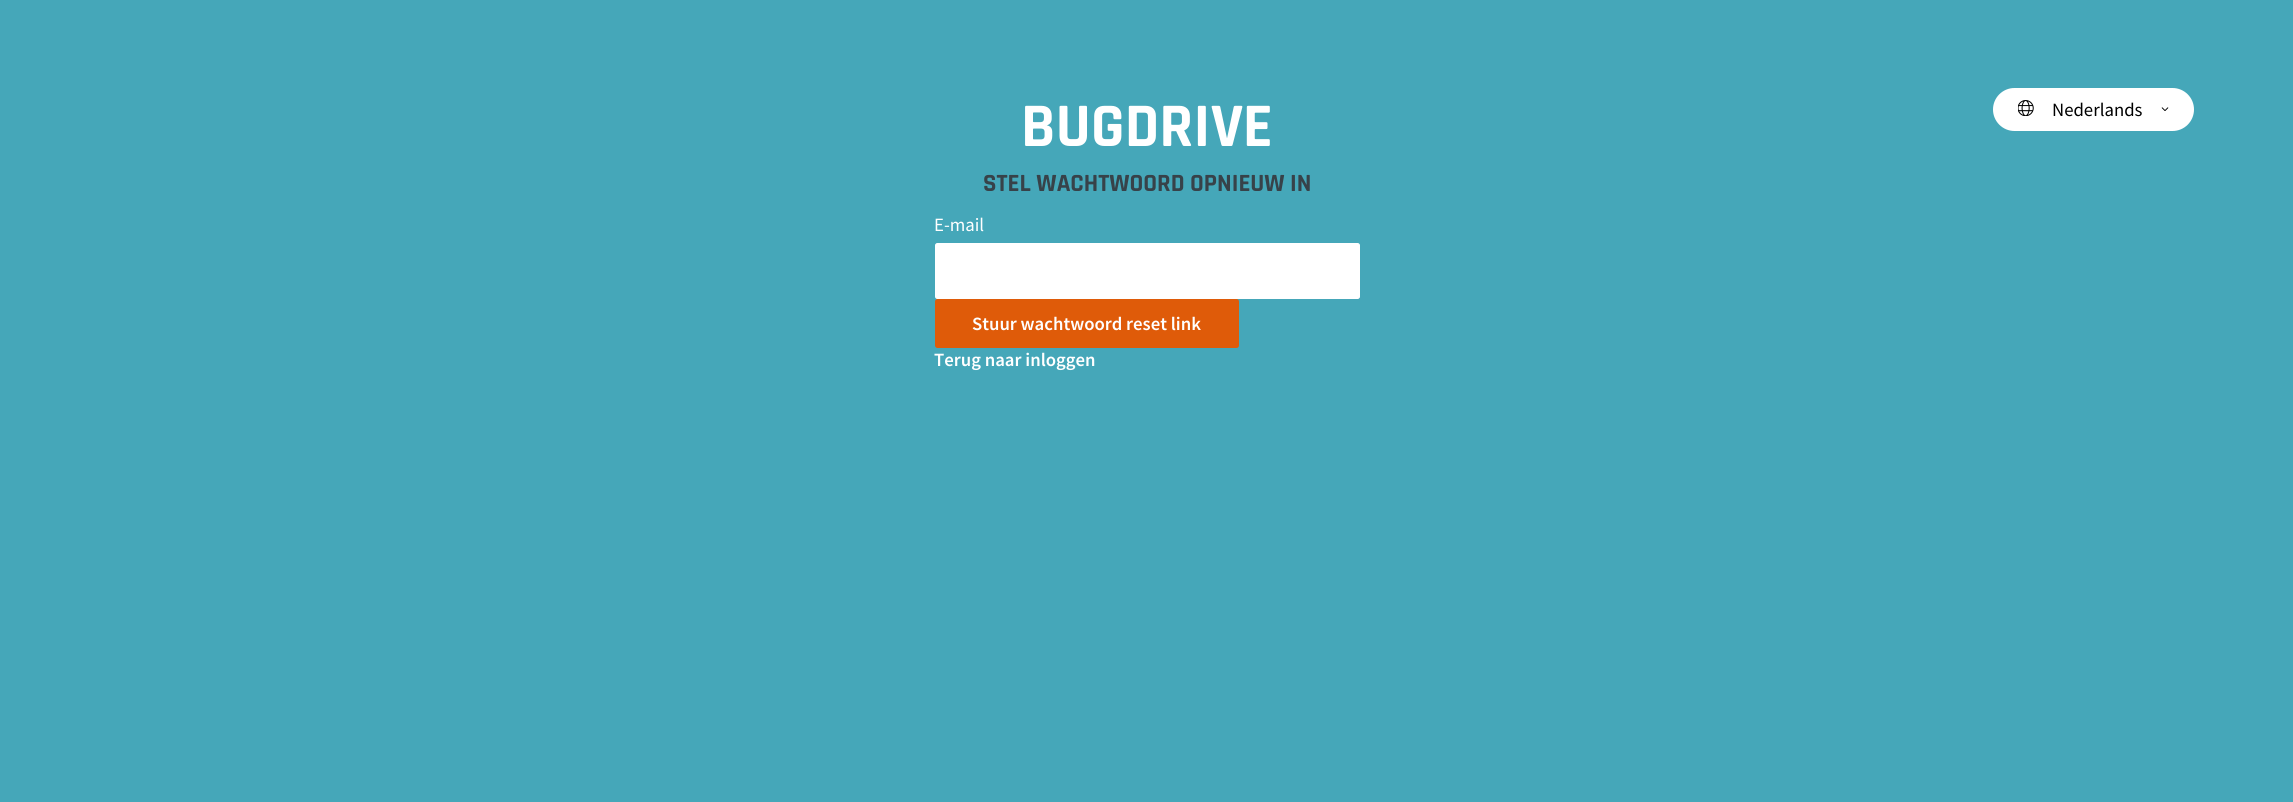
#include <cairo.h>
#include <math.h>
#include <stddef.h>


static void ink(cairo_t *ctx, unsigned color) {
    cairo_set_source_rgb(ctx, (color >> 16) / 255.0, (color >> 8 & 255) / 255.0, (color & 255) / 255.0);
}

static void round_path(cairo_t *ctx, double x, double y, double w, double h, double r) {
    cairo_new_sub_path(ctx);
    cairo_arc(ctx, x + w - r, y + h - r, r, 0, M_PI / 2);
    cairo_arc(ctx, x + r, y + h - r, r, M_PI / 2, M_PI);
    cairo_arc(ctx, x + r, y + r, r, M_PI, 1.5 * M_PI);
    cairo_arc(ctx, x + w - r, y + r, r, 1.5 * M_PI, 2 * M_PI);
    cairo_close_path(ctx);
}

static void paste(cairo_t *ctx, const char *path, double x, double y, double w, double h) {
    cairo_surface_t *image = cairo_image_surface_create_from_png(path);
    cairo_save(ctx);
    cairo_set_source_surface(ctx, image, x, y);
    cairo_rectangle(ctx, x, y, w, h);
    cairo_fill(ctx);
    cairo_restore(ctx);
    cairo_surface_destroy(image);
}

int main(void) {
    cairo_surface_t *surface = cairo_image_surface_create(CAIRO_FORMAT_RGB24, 2293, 802);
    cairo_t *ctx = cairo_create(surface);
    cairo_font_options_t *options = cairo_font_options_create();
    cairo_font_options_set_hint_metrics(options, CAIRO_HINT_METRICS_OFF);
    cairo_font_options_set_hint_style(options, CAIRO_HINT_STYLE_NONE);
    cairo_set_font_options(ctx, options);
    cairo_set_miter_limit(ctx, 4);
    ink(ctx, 0x45A7B9);
    cairo_paint(ctx);
    cairo_select_font_face(ctx, "Rajdhani", CAIRO_FONT_SLANT_NORMAL, CAIRO_FONT_WEIGHT_BOLD);
    cairo_set_font_size(ctx, 62.5);
    ink(ctx, 0xFFFFFF);
    cairo_move_to(ctx, 1021, 146);
    cairo_show_text(ctx, "BUGDRIVE");
    round_path(ctx, 1993, 88, 201, 43, 21.5);
    cairo_fill(ctx);
    paste(ctx, "media/1.png", 2018, 100, 16, 16);
    cairo_select_font_face(ctx, "Source Sans Pro", CAIRO_FONT_SLANT_NORMAL, CAIRO_FONT_WEIGHT_NORMAL);
    cairo_set_font_size(ctx, 18.75);
    ink(ctx, 0x000000);
    cairo_move_to(ctx, 2052, 116);
    cairo_show_text(ctx, "Nederlands");
    paste(ctx, "media/2.png", 2161, 107, 8, 4);
    cairo_select_font_face(ctx, "Rajdhani", CAIRO_FONT_SLANT_NORMAL, CAIRO_FONT_WEIGHT_BOLD);
    cairo_set_font_size(ctx, 25);
    ink(ctx, 0x374249);
    cairo_move_to(ctx, 983, 191);
    cairo_show_text(ctx, "STEL WACHTWOORD OPNIEUW IN");
    cairo_select_font_face(ctx, "Source Sans Pro", CAIRO_FONT_SLANT_NORMAL, CAIRO_FONT_WEIGHT_NORMAL);
    cairo_set_font_size(ctx, 18.75);
    ink(ctx, 0xFFFFFF);
    cairo_move_to(ctx, 934, 231);
    cairo_show_text(ctx, "E-mail");
    round_path(ctx, 935.5, 243.5, 424, 55, 2);
    cairo_fill_preserve(ctx);
    cairo_set_line_width(ctx, 1);
    cairo_stroke(ctx);
    ink(ctx, 0xDF5B09);
    round_path(ctx, 935, 299, 304, 49, 2.5);
    cairo_fill(ctx);
    cairo_select_font_face(ctx, "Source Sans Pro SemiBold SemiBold", CAIRO_FONT_SLANT_NORMAL, CAIRO_FONT_WEIGHT_NORMAL);
    ink(ctx, 0xFFFFFF);
    cairo_move_to(ctx, 972, 330);
    cairo_show_text(ctx, "Stuur wachtwoord reset link");
    cairo_move_to(ctx, 934, 366);
    cairo_show_text(ctx, "Terug naar inloggen");
    cairo_surface_write_to_png(surface, "image.png");
    cairo_font_options_destroy(options);
    cairo_destroy(ctx);
    cairo_surface_destroy(surface);
    return 0;
}
